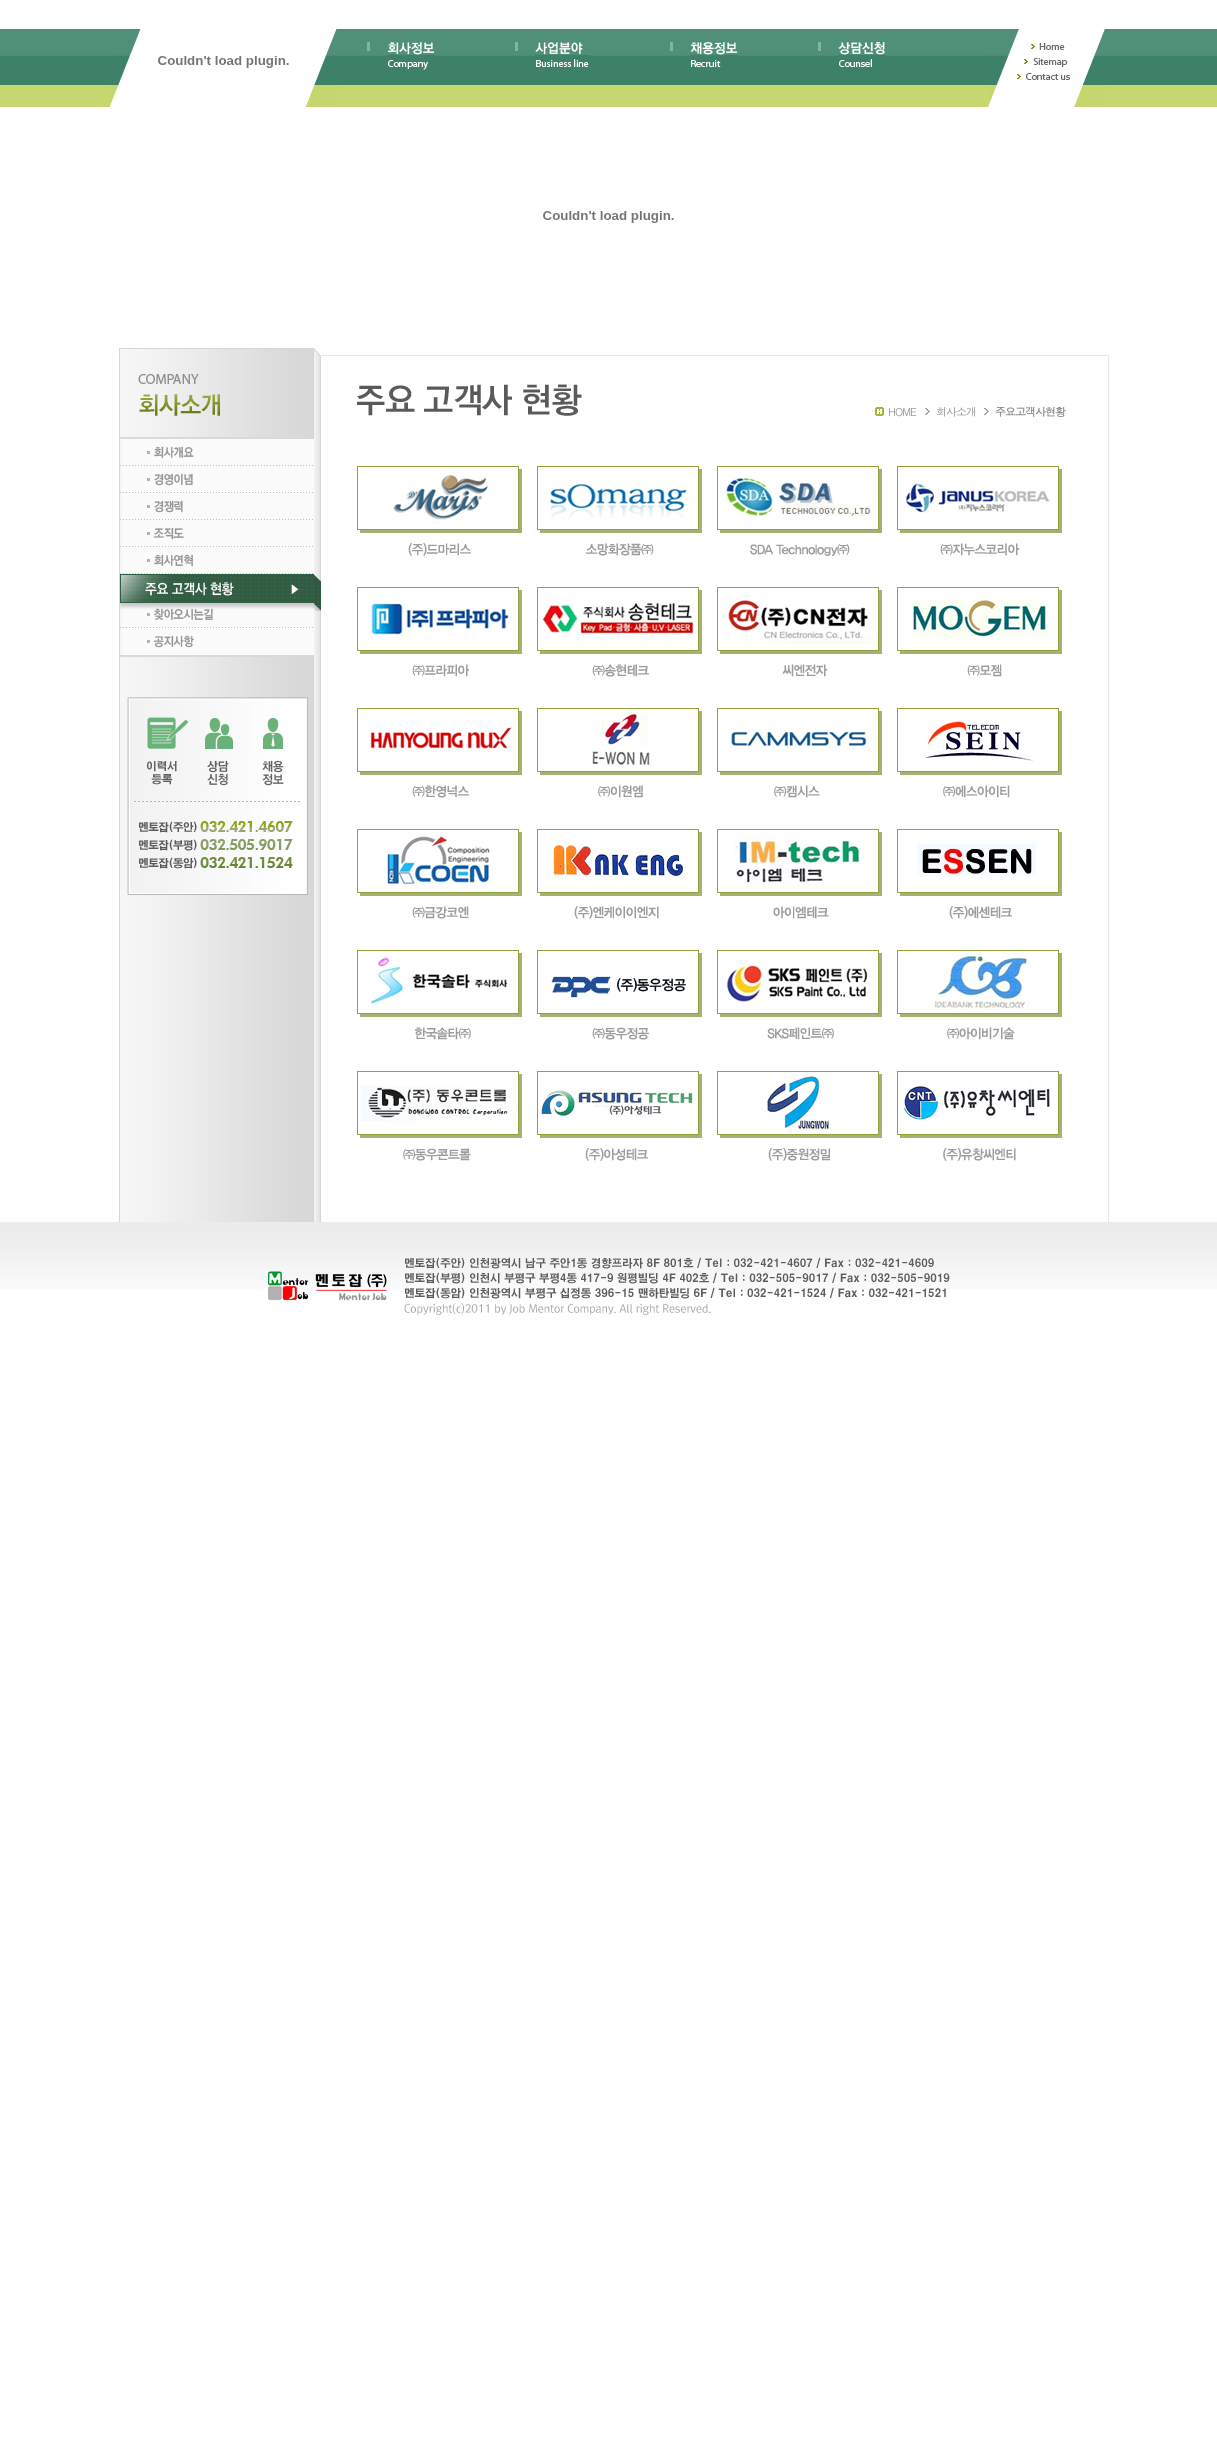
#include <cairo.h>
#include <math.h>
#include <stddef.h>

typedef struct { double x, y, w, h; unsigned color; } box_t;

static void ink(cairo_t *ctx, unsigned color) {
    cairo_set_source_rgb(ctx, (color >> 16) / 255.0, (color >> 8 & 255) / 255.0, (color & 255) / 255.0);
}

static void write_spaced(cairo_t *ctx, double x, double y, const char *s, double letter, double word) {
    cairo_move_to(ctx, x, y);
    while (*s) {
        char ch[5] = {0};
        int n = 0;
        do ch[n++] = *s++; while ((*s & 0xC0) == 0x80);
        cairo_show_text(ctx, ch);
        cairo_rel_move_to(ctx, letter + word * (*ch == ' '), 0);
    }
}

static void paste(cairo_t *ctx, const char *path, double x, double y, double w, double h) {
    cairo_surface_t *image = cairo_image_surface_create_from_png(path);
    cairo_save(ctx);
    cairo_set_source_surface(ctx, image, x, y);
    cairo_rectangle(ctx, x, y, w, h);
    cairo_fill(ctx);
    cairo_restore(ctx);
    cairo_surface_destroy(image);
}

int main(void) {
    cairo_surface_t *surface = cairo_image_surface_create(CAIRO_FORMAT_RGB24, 1217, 2459);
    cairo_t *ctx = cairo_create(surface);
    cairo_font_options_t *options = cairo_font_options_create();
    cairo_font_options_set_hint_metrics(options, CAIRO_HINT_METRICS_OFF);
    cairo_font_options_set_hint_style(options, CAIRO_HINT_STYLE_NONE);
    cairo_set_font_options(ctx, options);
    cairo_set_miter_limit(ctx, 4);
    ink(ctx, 0xFFFFFF);
    cairo_paint(ctx);
    paste(ctx, "media/1.png", 0, 29, 1217, 78);
    paste(ctx, "media/2.png", 109, 29, 228, 78);
    paste(ctx, "media/3.png", 158, 56, 131, 12);
    paste(ctx, "media/4.png", 988, 29, 117, 78);
    ink(ctx, 0x83B3A2);
    cairo_rectangle(ctx, 367, 42, 3, 9);
    cairo_fill(ctx);
    paste(ctx, "media/5.png", 387, 42, 48, 28);
    cairo_rectangle(ctx, 515, 42, 3, 9);
    cairo_fill(ctx);
    paste(ctx, "media/6.png", 535, 42, 55, 25);
    cairo_rectangle(ctx, 670, 42, 3, 9);
    cairo_fill(ctx);
    paste(ctx, "media/7.png", 690, 42, 48, 25);
    cairo_rectangle(ctx, 818, 42, 3, 9);
    cairo_fill(ctx);
    paste(ctx, "media/8.png", 838, 42, 48, 25);
    paste(ctx, "media/9.png", 1031, 43, 34, 7);
    paste(ctx, "media/10.png", 1024, 58, 44, 9);
    paste(ctx, "media/11.png", 1017, 73, 53, 7);
    paste(ctx, "media/3.png", 543, 211, 131, 12);
    paste(ctx, "media/12.png", 119, 348, 202, 874);
    paste(ctx, "media/13.png", 120, 348, 229, 8);
    paste(ctx, "media/14.png", 138, 374, 82, 42);
    {
        static const box_t items[] = {
            {122, 439, 192, 216, 0xFBFBFB},
            {120, 437, 194, 2, 0xD9D9D9},
            {120, 655, 194, 2, 0xD9D9D9},
        };
        for (size_t i = 0; i < sizeof items / sizeof *items; i++) {
            ink(ctx, items[i].color);
            cairo_rectangle(ctx, items[i].x, items[i].y, items[i].w, items[i].h);
            cairo_fill(ctx);
        }
    }
    paste(ctx, "media/15.png", 120, 465, 193, 1);
    paste(ctx, "media/16.png", 147, 446, 47, 12);
    paste(ctx, "media/15.png", 120, 492, 193, 1);
    paste(ctx, "media/17.png", 147, 473, 46, 13);
    paste(ctx, "media/15.png", 120, 519, 193, 1);
    paste(ctx, "media/18.png", 147, 500, 36, 13);
    paste(ctx, "media/15.png", 120, 546, 193, 1);
    paste(ctx, "media/19.png", 147, 527, 37, 13);
    paste(ctx, "media/15.png", 120, 573, 193, 1);
    paste(ctx, "media/20.png", 147, 554, 46, 13);
    paste(ctx, "media/22.png", 147, 608, 66, 12);
    paste(ctx, "media/21.png", 120, 574, 201, 37);
    paste(ctx, "media/15.png", 120, 627, 193, 1);
    paste(ctx, "media/23.png", 147, 635, 47, 13);
    paste(ctx, "media/24.png", 127, 697, 181, 198);
    ink(ctx, 0xE8E8E8);
    cairo_rectangle(ctx, 349, 355, 760, 1);
    cairo_fill(ctx);
    cairo_rectangle(ctx, 1108, 355, 1, 867);
    cairo_fill(ctx);
    paste(ctx, "media/25.png", 357, 384, 225, 32);
    paste(ctx, "media/26.png", 925, 408, 5, 7);
    paste(ctx, "media/27.png", 875, 407, 9, 9);
    cairo_select_font_face(ctx, "Dotum", CAIRO_FONT_SLANT_NORMAL, CAIRO_FONT_WEIGHT_NORMAL);
    cairo_set_font_size(ctx, 11);
    ink(ctx, 0x898989);
    write_spaced(ctx, 888, 416, "HOME", -1, 0);
    paste(ctx, "media/26.png", 984, 408, 5, 7);
    write_spaced(ctx, 936, 416, "회사소개", -1, 0);
    cairo_select_font_face(ctx, "Dotum", CAIRO_FONT_SLANT_NORMAL, CAIRO_FONT_WEIGHT_BOLD);
    write_spaced(ctx, 995, 416, "주요고객사현황", -1, 0);
    paste(ctx, "media/28.png", 357, 466, 165, 90);
    paste(ctx, "media/29.png", 537, 466, 165, 90);
    paste(ctx, "media/30.png", 717, 466, 165, 90);
    paste(ctx, "media/31.png", 897, 466, 165, 90);
    paste(ctx, "media/32.png", 357, 587, 165, 90);
    paste(ctx, "media/33.png", 537, 587, 165, 90);
    paste(ctx, "media/34.png", 717, 587, 165, 90);
    paste(ctx, "media/35.png", 897, 587, 165, 90);
    paste(ctx, "media/36.png", 357, 708, 165, 90);
    paste(ctx, "media/37.png", 537, 708, 165, 90);
    paste(ctx, "media/38.png", 717, 708, 165, 90);
    paste(ctx, "media/39.png", 897, 708, 165, 90);
    paste(ctx, "media/40.png", 357, 829, 165, 90);
    paste(ctx, "media/41.png", 537, 829, 165, 90);
    paste(ctx, "media/42.png", 717, 829, 165, 90);
    paste(ctx, "media/43.png", 897, 829, 165, 90);
    paste(ctx, "media/44.png", 357, 950, 165, 90);
    paste(ctx, "media/45.png", 537, 950, 165, 90);
    paste(ctx, "media/46.png", 717, 950, 165, 90);
    paste(ctx, "media/47.png", 897, 950, 165, 90);
    paste(ctx, "media/48.png", 357, 1071, 165, 90);
    paste(ctx, "media/49.png", 537, 1071, 165, 90);
    paste(ctx, "media/50.png", 717, 1071, 165, 90);
    paste(ctx, "media/51.png", 897, 1071, 165, 90);
    paste(ctx, "media/52.png", 0, 1222, 1217, 67);
    paste(ctx, "media/53.png", 268, 1257, 682, 58);
    cairo_surface_write_to_png(surface, "image.png");
    cairo_font_options_destroy(options);
    cairo_destroy(ctx);
    cairo_surface_destroy(surface);
    return 0;
}
